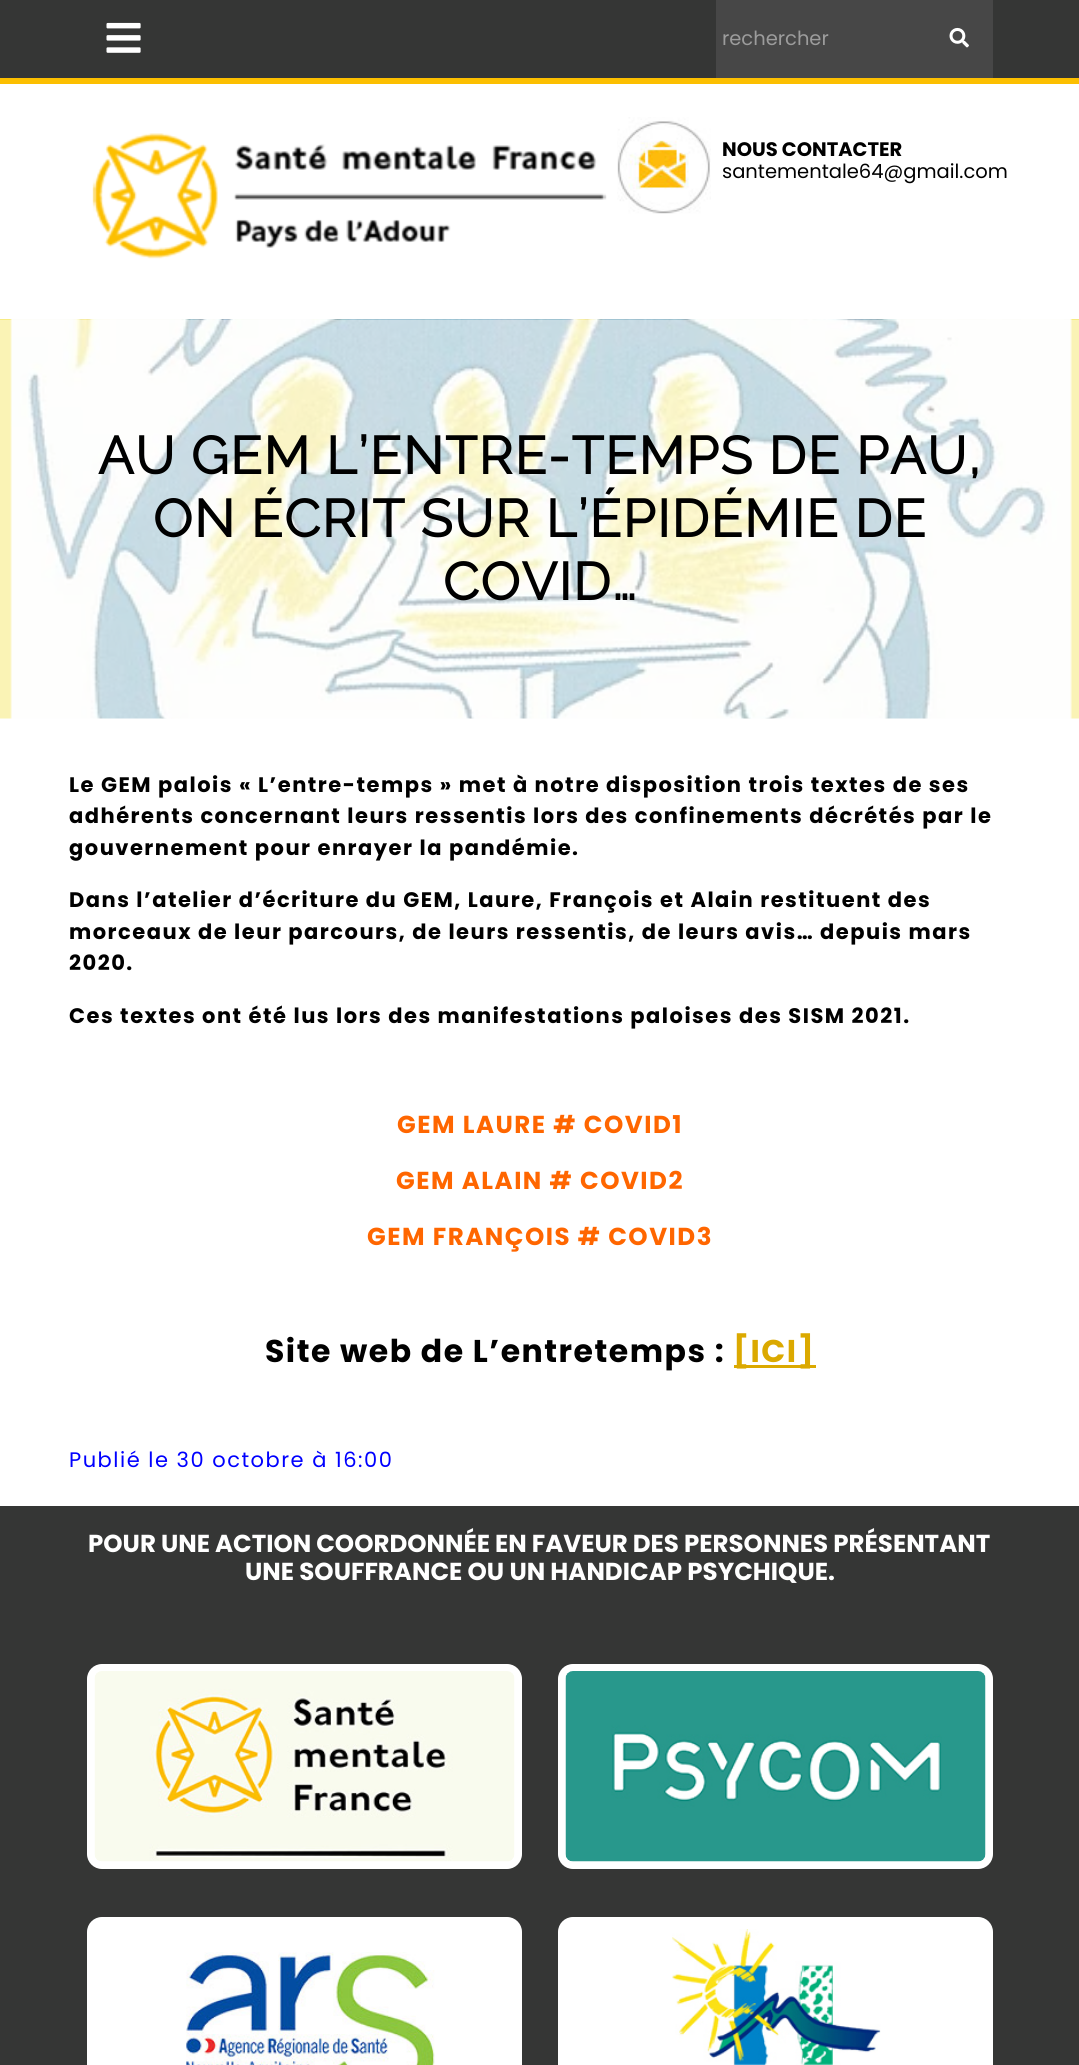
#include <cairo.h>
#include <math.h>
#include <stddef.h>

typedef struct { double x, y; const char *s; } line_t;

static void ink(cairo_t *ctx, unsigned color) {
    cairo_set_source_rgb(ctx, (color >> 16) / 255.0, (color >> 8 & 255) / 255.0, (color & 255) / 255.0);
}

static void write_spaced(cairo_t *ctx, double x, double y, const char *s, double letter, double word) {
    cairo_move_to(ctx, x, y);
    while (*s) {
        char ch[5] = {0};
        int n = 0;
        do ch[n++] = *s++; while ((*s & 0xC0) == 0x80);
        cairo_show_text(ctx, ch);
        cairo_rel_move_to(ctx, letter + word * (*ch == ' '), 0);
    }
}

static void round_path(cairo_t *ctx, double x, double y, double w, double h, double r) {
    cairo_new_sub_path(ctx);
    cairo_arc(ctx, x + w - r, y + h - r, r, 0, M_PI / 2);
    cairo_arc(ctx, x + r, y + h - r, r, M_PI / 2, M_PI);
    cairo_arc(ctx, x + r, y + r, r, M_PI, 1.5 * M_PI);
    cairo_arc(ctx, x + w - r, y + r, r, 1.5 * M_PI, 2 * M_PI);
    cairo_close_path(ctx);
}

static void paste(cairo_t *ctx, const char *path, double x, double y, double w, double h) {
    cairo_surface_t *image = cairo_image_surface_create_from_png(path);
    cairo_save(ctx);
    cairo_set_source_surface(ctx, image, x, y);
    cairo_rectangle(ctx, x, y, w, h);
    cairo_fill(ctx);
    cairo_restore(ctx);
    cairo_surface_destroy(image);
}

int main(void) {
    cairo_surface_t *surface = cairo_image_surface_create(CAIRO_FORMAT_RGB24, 1079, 2065);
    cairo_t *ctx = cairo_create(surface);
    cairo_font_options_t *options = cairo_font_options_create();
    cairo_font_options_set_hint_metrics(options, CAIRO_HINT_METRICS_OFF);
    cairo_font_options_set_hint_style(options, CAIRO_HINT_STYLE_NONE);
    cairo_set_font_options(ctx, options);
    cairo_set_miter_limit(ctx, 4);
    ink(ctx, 0xFFFFFF);
    cairo_paint(ctx);
    ink(ctx, 0x353635);
    cairo_rectangle(ctx, 0, 0, 1079, 78);
    cairo_fill(ctx);
    ink(ctx, 0xFCBF00);
    cairo_rectangle(ctx, 0, 78, 1079, 6);
    cairo_fill(ctx);
    paste(ctx, "media/1.png", 106, 22, 35, 31);
    ink(ctx, 0x474747);
    cairo_rectangle(ctx, 716, 0, 277, 78);
    cairo_fill(ctx);
    cairo_select_font_face(ctx, "Poppins", CAIRO_FONT_SLANT_NORMAL, CAIRO_FONT_WEIGHT_NORMAL);
    cairo_set_font_size(ctx, 19.5);
    ink(ctx, 0x9C9C9C);
    cairo_move_to(ctx, 722, 45);
    cairo_show_text(ctx, "rechercher");
    paste(ctx, "media/2.png", 949, 27, 20, 21);
    paste(ctx, "media/3.png", 92, 133, 515, 126);
    paste(ctx, "media/4.png", 617, 117, 94, 97);
    cairo_select_font_face(ctx, "Poppins", CAIRO_FONT_SLANT_NORMAL, CAIRO_FONT_WEIGHT_BOLD);
    ink(ctx, 0x000000);
    cairo_move_to(ctx, 722, 156);
    cairo_show_text(ctx, "NOUS CONTACTER");
    cairo_select_font_face(ctx, "Poppins", CAIRO_FONT_SLANT_NORMAL, CAIRO_FONT_WEIGHT_NORMAL);
    cairo_move_to(ctx, 722, 178);
    cairo_show_text(ctx, "santementale64@gmail.com");
    paste(ctx, "media/5.png", 0, 319, 1079, 400);
    cairo_select_font_face(ctx, "Raleway", CAIRO_FONT_SLANT_NORMAL, CAIRO_FONT_WEIGHT_BOLD);
    cairo_set_font_size(ctx, 52.5);
    {
        static const line_t items[] = {
            {98, 474, "AU GEM L’ENTRE-TEMPS DE PAU,"},
            {153, 537, "ON ÉCRIT SUR L’ÉPIDÉMIE DE"},
            {443, 600, "COVID…"},
        };
        for (size_t i = 0; i < sizeof items / sizeof *items; i++) {
            write_spaced(ctx, items[i].x, items[i].y, items[i].s, 1.5, 0);
        }
    }
    cairo_select_font_face(ctx, "Poppins", CAIRO_FONT_SLANT_NORMAL, CAIRO_FONT_WEIGHT_BOLD);
    cairo_set_font_size(ctx, 21);
    {
        static const line_t items[] = {
            {69, 792, "Le GEM palois « L’entre-temps » met à notre disposition trois textes de ses"},
            {69, 823, "adhérents concernant leurs ressentis lors des confinements décrétés par le"},
            {69, 855, "gouvernement pour enrayer la pandémie."},
            {69, 907, "Dans l’atelier d’écriture du GEM, Laure, François et Alain restituent des"},
            {69, 939, "morceaux de leur parcours, de leurs ressentis, de leurs avis… depuis mars"},
            {69, 970, "2020."},
            {69, 1023, "Ces textes ont été lus lors des manifestations paloises des SISM 2021."},
        };
        for (size_t i = 0; i < sizeof items / sizeof *items; i++) {
            write_spaced(ctx, items[i].x, items[i].y, items[i].s, 1.5, 0);
        }
    }
    cairo_set_font_size(ctx, 24.55);
    ink(ctx, 0xFF6600);
    {
        static const line_t items[] = {
            {397, 1133, "GEM LAURE # COVID1"},
            {396, 1189, "GEM ALAIN # COVID2"},
            {367, 1245, "GEM FRANÇOIS # COVID3"},
        };
        for (size_t i = 0; i < sizeof items / sizeof *items; i++) {
            write_spaced(ctx, items[i].x, items[i].y, items[i].s, 1.5, 0);
        }
    }
    cairo_set_font_size(ctx, 31.5);
    ink(ctx, 0x000000);
    write_spaced(ctx, 265, 1362, "Site web de L’entretemps :", 1.5, 0);
    ink(ctx, 0xDBA900);
    cairo_rectangle(ctx, 734, 1365, 82, 3);
    cairo_fill(ctx);
    write_spaced(ctx, 733, 1362, "[ICI]", 1.5, 0);
    cairo_select_font_face(ctx, "Poppins", CAIRO_FONT_SLANT_NORMAL, CAIRO_FONT_WEIGHT_NORMAL);
    cairo_set_font_size(ctx, 21);
    ink(ctx, 0x0000FF);
    write_spaced(ctx, 69, 1467, "Publié le 30 octobre à 16:00", 1.5, 0);
    ink(ctx, 0x353635);
    cairo_rectangle(ctx, 0, 1506, 1079, 559);
    cairo_fill(ctx);
    cairo_select_font_face(ctx, "Poppins", CAIRO_FONT_SLANT_NORMAL, CAIRO_FONT_WEIGHT_BOLD);
    cairo_set_font_size(ctx, 24.55);
    ink(ctx, 0xFFFFFF);
    write_spaced(ctx, 88, 1552, "POUR UNE ACTION COORDONNÉE EN FAVEUR DES PERSONNES PRÉSENTANT", 0, -0.25);
    cairo_move_to(ctx, 245, 1580);
    cairo_show_text(ctx, "UNE SOUFFRANCE OU UN HANDICAP PSYCHIQUE.");
    round_path(ctx, 87, 1664, 435, 205, 15);
    cairo_fill(ctx);
    paste(ctx, "media/6.png", 94, 1671, 421, 191);
    round_path(ctx, 558, 1664, 435, 205, 15);
    cairo_fill(ctx);
    paste(ctx, "media/7.png", 565, 1671, 421, 191);
    round_path(ctx, 87, 1917, 435, 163, 15);
    cairo_fill(ctx);
    paste(ctx, "media/8.png", 186, 1952, 249, 113);
    round_path(ctx, 558, 1917, 435, 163, 15);
    cairo_fill(ctx);
    paste(ctx, "media/9.png", 672, 1929, 209, 136);
    cairo_surface_write_to_png(surface, "image.png");
    cairo_font_options_destroy(options);
    cairo_destroy(ctx);
    cairo_surface_destroy(surface);
    return 0;
}
